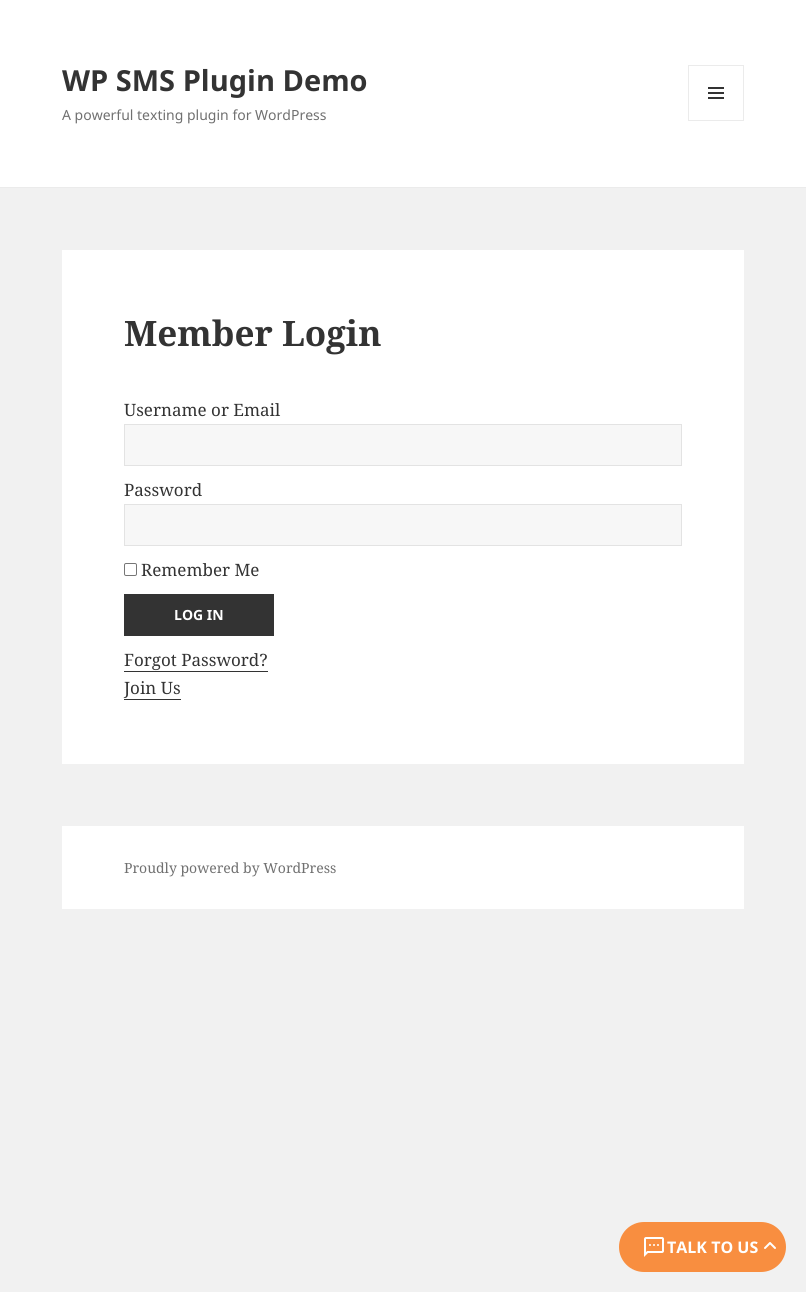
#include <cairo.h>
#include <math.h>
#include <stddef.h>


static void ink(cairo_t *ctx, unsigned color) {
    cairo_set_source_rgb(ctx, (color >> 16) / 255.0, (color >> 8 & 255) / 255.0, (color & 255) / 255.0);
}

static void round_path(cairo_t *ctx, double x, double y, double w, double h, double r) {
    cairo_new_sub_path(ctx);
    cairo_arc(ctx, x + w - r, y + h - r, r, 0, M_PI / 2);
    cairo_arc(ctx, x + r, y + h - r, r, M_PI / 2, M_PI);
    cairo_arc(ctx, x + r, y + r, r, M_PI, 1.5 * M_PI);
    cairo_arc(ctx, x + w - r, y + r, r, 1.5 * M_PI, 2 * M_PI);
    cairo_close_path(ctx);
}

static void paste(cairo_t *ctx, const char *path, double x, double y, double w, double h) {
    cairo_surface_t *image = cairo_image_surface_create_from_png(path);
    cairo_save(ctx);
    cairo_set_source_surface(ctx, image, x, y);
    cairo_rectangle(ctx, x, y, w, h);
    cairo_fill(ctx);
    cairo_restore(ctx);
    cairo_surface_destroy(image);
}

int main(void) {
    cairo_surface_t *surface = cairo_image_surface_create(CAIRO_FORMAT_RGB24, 806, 1292);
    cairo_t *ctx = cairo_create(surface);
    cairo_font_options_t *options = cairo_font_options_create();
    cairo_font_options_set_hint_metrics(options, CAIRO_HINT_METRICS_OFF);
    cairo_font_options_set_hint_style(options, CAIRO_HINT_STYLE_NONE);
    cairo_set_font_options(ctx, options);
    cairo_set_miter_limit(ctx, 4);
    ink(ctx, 0xF1F1F1);
    cairo_paint(ctx);
    ink(ctx, 0xFFFFFF);
    cairo_rectangle(ctx, 0, 0, 806, 187);
    cairo_fill(ctx);
    ink(ctx, 0xEBEBEB);
    cairo_rectangle(ctx, 0, 187, 806, 1);
    cairo_fill(ctx);
    cairo_select_font_face(ctx, "Noto Sans", CAIRO_FONT_SLANT_NORMAL, CAIRO_FONT_WEIGHT_BOLD);
    cairo_set_font_size(ctx, 29);
    ink(ctx, 0x333333);
    cairo_move_to(ctx, 62, 91);
    cairo_show_text(ctx, "WP SMS Plugin Demo");
    cairo_rectangle(ctx, 688.5, 65.5, 55, 55);
    ink(ctx, 0xEBEBEB);
    cairo_set_line_width(ctx, 1);
    cairo_stroke(ctx);
    paste(ctx, "media/1.png", 708, 87, 16, 12);
    cairo_select_font_face(ctx, "Noto Sans", CAIRO_FONT_SLANT_NORMAL, CAIRO_FONT_WEIGHT_NORMAL);
    cairo_set_font_size(ctx, 14);
    ink(ctx, 0x707070);
    cairo_move_to(ctx, 62, 120);
    cairo_show_text(ctx, "A powerful texting plugin for WordPress");
    ink(ctx, 0xFFFFFF);
    cairo_rectangle(ctx, 62, 250, 682, 514);
    cairo_fill(ctx);
    cairo_select_font_face(ctx, "Noto Serif", CAIRO_FONT_SLANT_NORMAL, CAIRO_FONT_WEIGHT_BOLD);
    cairo_set_font_size(ctx, 35);
    ink(ctx, 0x333333);
    cairo_move_to(ctx, 124, 346);
    cairo_show_text(ctx, "Member Login");
    cairo_select_font_face(ctx, "Noto Serif", CAIRO_FONT_SLANT_NORMAL, CAIRO_FONT_WEIGHT_NORMAL);
    cairo_set_font_size(ctx, 17);
    cairo_move_to(ctx, 124, 416);
    cairo_show_text(ctx, "Username or Email");
    ink(ctx, 0xF7F7F7);
    cairo_rectangle(ctx, 124.5, 424.5, 557, 41);
    cairo_fill_preserve(ctx);
    ink(ctx, 0xE3E3E3);
    cairo_stroke(ctx);
    ink(ctx, 0x333333);
    cairo_move_to(ctx, 124, 496);
    cairo_show_text(ctx, "Password");
    ink(ctx, 0xF7F7F7);
    cairo_rectangle(ctx, 124.5, 504.5, 557, 41);
    cairo_fill_preserve(ctx);
    ink(ctx, 0xE3E3E3);
    cairo_stroke(ctx);
    round_path(ctx, 124.5, 563.5, 12, 12, 1.5);
    ink(ctx, 0x767676);
    cairo_stroke(ctx);
    ink(ctx, 0x333333);
    cairo_move_to(ctx, 141, 576);
    cairo_show_text(ctx, "Remember Me");
    cairo_rectangle(ctx, 124, 594, 150, 42);
    cairo_fill(ctx);
    cairo_select_font_face(ctx, "Noto Sans", CAIRO_FONT_SLANT_NORMAL, CAIRO_FONT_WEIGHT_BOLD);
    cairo_set_font_size(ctx, 14);
    ink(ctx, 0xFFFFFF);
    cairo_move_to(ctx, 174, 620);
    cairo_show_text(ctx, "LOG IN");
    cairo_select_font_face(ctx, "Noto Serif", CAIRO_FONT_SLANT_NORMAL, CAIRO_FONT_WEIGHT_NORMAL);
    cairo_set_font_size(ctx, 17);
    ink(ctx, 0x333333);
    cairo_move_to(ctx, 124, 666);
    cairo_show_text(ctx, "Forgot Password?");
    cairo_rectangle(ctx, 124, 671, 144, 1);
    cairo_fill(ctx);
    cairo_move_to(ctx, 124, 694);
    cairo_show_text(ctx, "Join Us");
    cairo_rectangle(ctx, 124, 699, 57, 1);
    cairo_fill(ctx);
    ink(ctx, 0xFFFFFF);
    cairo_rectangle(ctx, 62, 826, 682, 83);
    cairo_fill(ctx);
    cairo_set_font_size(ctx, 14);
    ink(ctx, 0x707070);
    cairo_move_to(ctx, 124, 873);
    cairo_show_text(ctx, "Proudly powered by WordPress");
    ink(ctx, 0xF88E40);
    round_path(ctx, 619, 1222, 167, 50, 25);
    cairo_fill(ctx);
    paste(ctx, "media/2.png", 644, 1237, 20, 20);
    cairo_select_font_face(ctx, "Noto Sans", CAIRO_FONT_SLANT_NORMAL, CAIRO_FONT_WEIGHT_BOLD);
    cairo_set_font_size(ctx, 16);
    ink(ctx, 0xFFFFFF);
    cairo_move_to(ctx, 667, 1253);
    cairo_show_text(ctx, "TALK TO US");
    cairo_new_path(ctx);
    cairo_move_to(ctx, 765, 1248);
    cairo_line_to(ctx, 770, 1243);
    cairo_line_to(ctx, 775, 1248);
    cairo_set_line_width(ctx, 2);
    cairo_set_line_cap(ctx, CAIRO_LINE_CAP_ROUND);
    cairo_set_line_join(ctx, CAIRO_LINE_JOIN_ROUND);
    cairo_stroke(ctx);
    cairo_surface_write_to_png(surface, "image.png");
    cairo_font_options_destroy(options);
    cairo_destroy(ctx);
    cairo_surface_destroy(surface);
    return 0;
}
